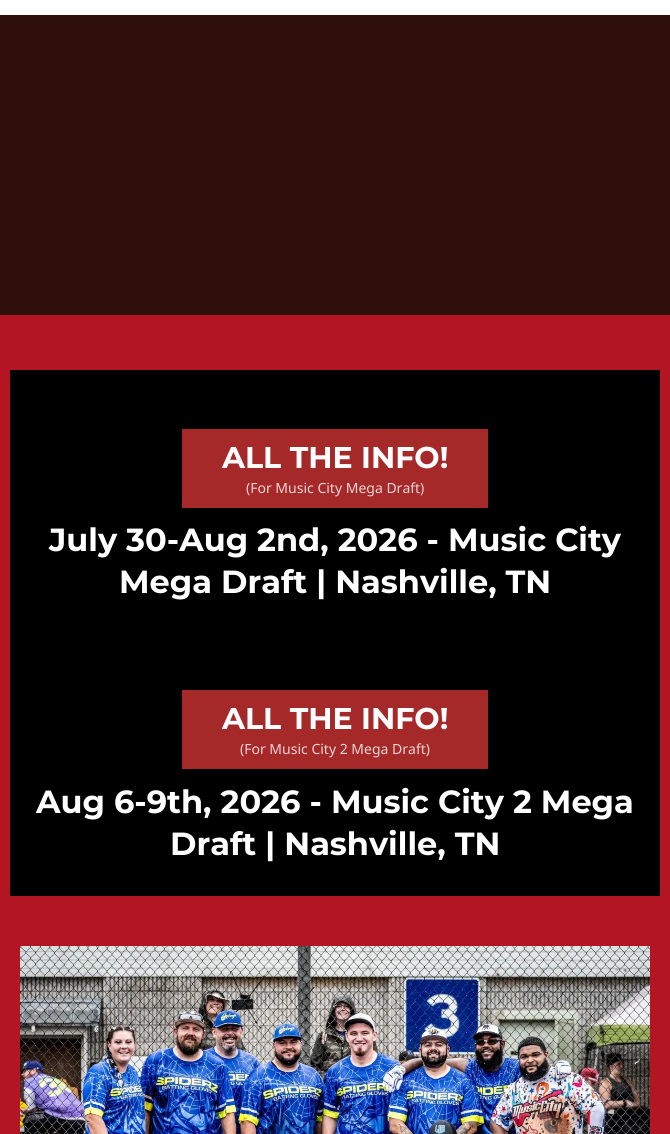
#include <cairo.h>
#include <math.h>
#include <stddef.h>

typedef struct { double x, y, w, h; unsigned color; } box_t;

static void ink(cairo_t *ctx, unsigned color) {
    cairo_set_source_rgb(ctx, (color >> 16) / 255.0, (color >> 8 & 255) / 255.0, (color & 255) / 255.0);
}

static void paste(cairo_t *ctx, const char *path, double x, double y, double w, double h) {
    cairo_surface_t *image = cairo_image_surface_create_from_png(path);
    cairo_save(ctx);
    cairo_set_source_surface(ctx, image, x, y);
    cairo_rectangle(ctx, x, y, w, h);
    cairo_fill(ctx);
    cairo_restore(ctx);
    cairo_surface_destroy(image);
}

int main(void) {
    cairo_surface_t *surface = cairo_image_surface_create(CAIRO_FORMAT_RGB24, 670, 1134);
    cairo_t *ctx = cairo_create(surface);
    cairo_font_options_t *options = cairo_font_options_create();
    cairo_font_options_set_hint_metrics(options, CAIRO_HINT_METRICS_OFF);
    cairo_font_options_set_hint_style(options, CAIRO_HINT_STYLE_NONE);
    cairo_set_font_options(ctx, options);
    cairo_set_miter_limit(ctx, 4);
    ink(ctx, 0xFFFFFF);
    cairo_paint(ctx);
    {
        static const box_t items[] = {
            {0, 15, 670, 300, 0x2E0F0C},
            {0, 315, 670, 819, 0xB31522},
            {10, 370, 650, 526, 0x000000},
            {182, 429, 306, 79, 0xA6292A},
        };
        for (size_t i = 0; i < sizeof items / sizeof *items; i++) {
            ink(ctx, items[i].color);
            cairo_rectangle(ctx, items[i].x, items[i].y, items[i].w, items[i].h);
            cairo_fill(ctx);
        }
    }
    cairo_select_font_face(ctx, "Montserrat", CAIRO_FONT_SLANT_NORMAL, CAIRO_FONT_WEIGHT_BOLD);
    cairo_set_font_size(ctx, 30);
    ink(ctx, 0xFFFFFF);
    cairo_move_to(ctx, 222, 468);
    cairo_show_text(ctx, "ALL THE INFO!");
    cairo_select_font_face(ctx, "Noto Sans", CAIRO_FONT_SLANT_NORMAL, CAIRO_FONT_WEIGHT_NORMAL);
    cairo_set_font_size(ctx, 14);
    ink(ctx, 0xEDD4D4);
    cairo_move_to(ctx, 246, 493);
    cairo_show_text(ctx, "(For Music City Mega Draft)");
    cairo_select_font_face(ctx, "Montserrat", CAIRO_FONT_SLANT_NORMAL, CAIRO_FONT_WEIGHT_BOLD);
    cairo_set_font_size(ctx, 32);
    ink(ctx, 0xFFFFFF);
    cairo_move_to(ctx, 49, 551);
    cairo_show_text(ctx, "July 30-Aug 2nd, 2026 - Music City");
    cairo_move_to(ctx, 119, 593);
    cairo_show_text(ctx, "Mega Draft | Nashville, TN");
    ink(ctx, 0xA6292A);
    cairo_rectangle(ctx, 182, 690, 306, 79);
    cairo_fill(ctx);
    cairo_set_font_size(ctx, 30);
    ink(ctx, 0xFFFFFF);
    cairo_move_to(ctx, 222, 729);
    cairo_show_text(ctx, "ALL THE INFO!");
    cairo_select_font_face(ctx, "Noto Sans", CAIRO_FONT_SLANT_NORMAL, CAIRO_FONT_WEIGHT_NORMAL);
    cairo_set_font_size(ctx, 14);
    ink(ctx, 0xEDD4D4);
    cairo_move_to(ctx, 240, 754);
    cairo_show_text(ctx, "(For Music City 2 Mega Draft)");
    cairo_select_font_face(ctx, "Montserrat", CAIRO_FONT_SLANT_NORMAL, CAIRO_FONT_WEIGHT_BOLD);
    cairo_set_font_size(ctx, 32);
    ink(ctx, 0xFFFFFF);
    cairo_move_to(ctx, 36, 813);
    cairo_show_text(ctx, "Aug 6-9th, 2026 - Music City 2 Mega");
    cairo_move_to(ctx, 170, 855);
    cairo_show_text(ctx, "Draft | Nashville, TN");
    paste(ctx, "media/1.png", 20, 946, 630, 188);
    cairo_surface_write_to_png(surface, "image.png");
    cairo_font_options_destroy(options);
    cairo_destroy(ctx);
    cairo_surface_destroy(surface);
    return 0;
}
